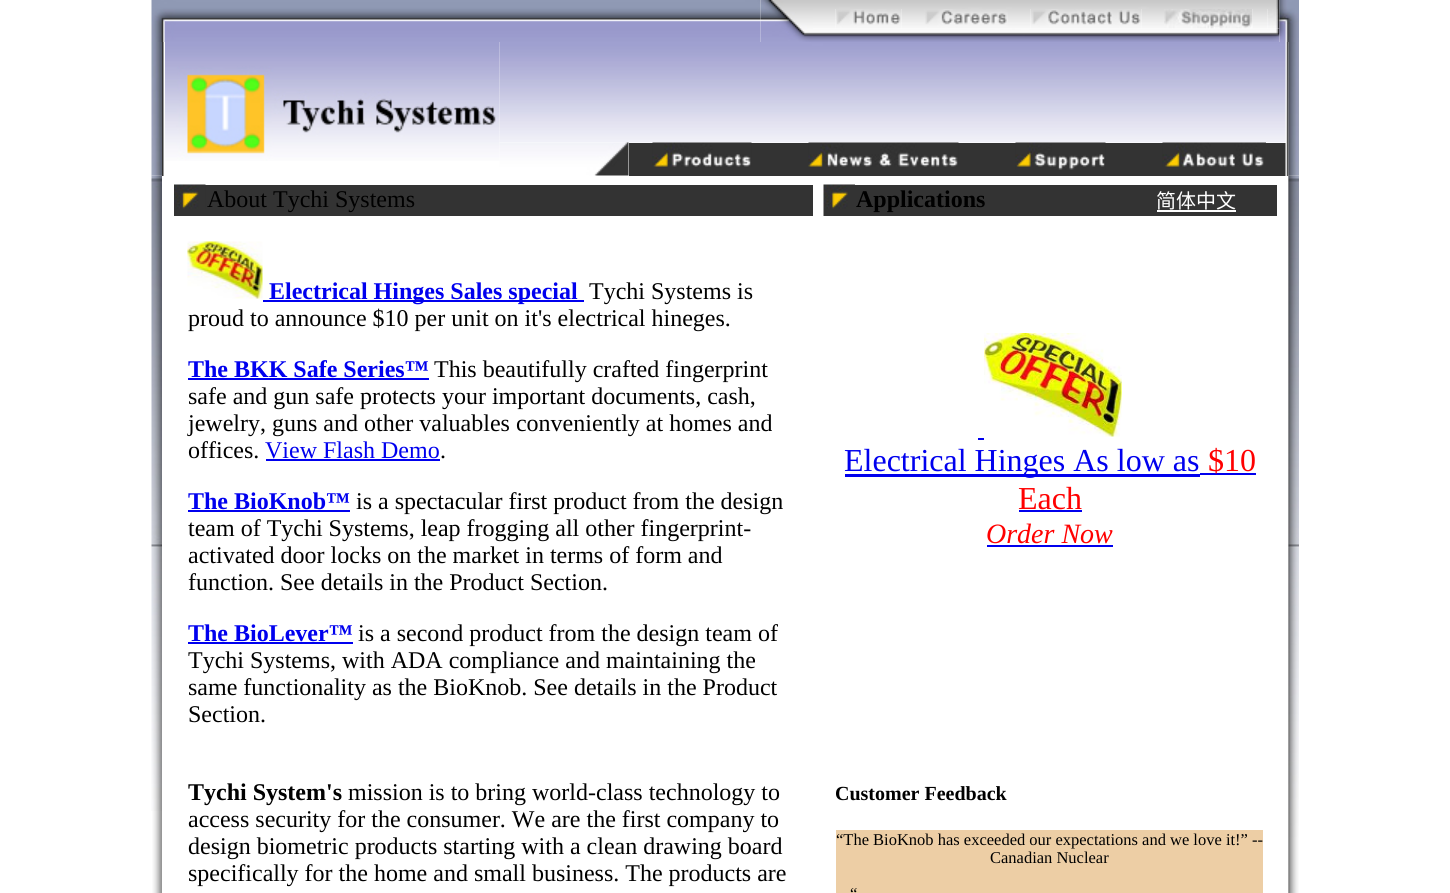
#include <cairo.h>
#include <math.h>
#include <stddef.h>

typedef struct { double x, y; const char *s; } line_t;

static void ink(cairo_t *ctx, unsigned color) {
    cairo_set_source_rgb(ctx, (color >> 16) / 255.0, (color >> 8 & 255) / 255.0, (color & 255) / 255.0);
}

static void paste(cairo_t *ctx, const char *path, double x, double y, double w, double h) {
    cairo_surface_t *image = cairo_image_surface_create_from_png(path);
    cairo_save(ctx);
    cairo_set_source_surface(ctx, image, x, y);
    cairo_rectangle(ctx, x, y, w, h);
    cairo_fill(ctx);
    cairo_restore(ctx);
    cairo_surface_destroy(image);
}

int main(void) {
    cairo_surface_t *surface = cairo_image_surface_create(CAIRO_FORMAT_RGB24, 1450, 893);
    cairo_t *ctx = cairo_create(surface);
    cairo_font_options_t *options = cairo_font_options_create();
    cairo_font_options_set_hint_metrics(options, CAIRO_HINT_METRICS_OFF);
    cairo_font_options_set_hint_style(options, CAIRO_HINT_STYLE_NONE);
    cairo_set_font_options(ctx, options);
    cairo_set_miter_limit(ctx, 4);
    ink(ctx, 0xFFFFFF);
    cairo_paint(ctx);
    paste(ctx, "media/1.png", 151, 0, 610, 42);
    paste(ctx, "media/2.png", 760, 0, 53, 42);
    paste(ctx, "media/3.png", 813, 0, 467, 9);
    paste(ctx, "media/4.png", 813, 9, 23, 20);
    paste(ctx, "media/5.png", 835, 9, 67, 20);
    paste(ctx, "media/6.png", 901, 9, 23, 20);
    paste(ctx, "media/7.png", 924, 9, 84, 20);
    paste(ctx, "media/4.png", 1008, 9, 23, 20);
    paste(ctx, "media/8.png", 1030, 9, 112, 20);
    paste(ctx, "media/6.png", 1141, 9, 23, 20);
    paste(ctx, "media/9.png", 1164, 9, 89, 20);
    paste(ctx, "media/10.png", 1252, 9, 16, 20);
    paste(ctx, "media/11.png", 1267, 9, 13, 20);
    paste(ctx, "media/12.png", 813, 28, 467, 14);
    paste(ctx, "media/13.png", 1279, 0, 20, 42);
    paste(ctx, "media/25.png", 152, 175, 10, 718);
    paste(ctx, "media/14.png", 151, 42, 11, 134);
    paste(ctx, "media/15.png", 162, 42, 2, 134);
    paste(ctx, "media/16.png", 165, 42, 335, 119);
    ink(ctx, 0x333333);
    cairo_rectangle(ctx, 629, 143, 657, 33);
    cairo_fill(ctx);
    paste(ctx, "media/23.png", 1285, 42, 4, 134);
    paste(ctx, "media/17.png", 499, 42, 787, 101);
    paste(ctx, "media/18.png", 499, 142, 130, 34);
    paste(ctx, "media/19.png", 652, 142, 100, 25);
    paste(ctx, "media/20.png", 808, 142, 151, 25);
    paste(ctx, "media/21.png", 1015, 142, 91, 28);
    paste(ctx, "media/22.png", 1162, 142, 104, 25);
    paste(ctx, "media/32.png", 1288, 175, 11, 718);
    paste(ctx, "media/24.png", 1288, 42, 11, 134);
    paste(ctx, "media/26.png", 151, 175, 11, 373);
    paste(ctx, "media/27.png", 151, 547, 11, 264);
    cairo_rectangle(ctx, 174, 185, 639, 31);
    cairo_fill(ctx);
    paste(ctx, "media/28.png", 174, 184, 32, 25);
    cairo_select_font_face(ctx, "Liberation Serif", CAIRO_FONT_SLANT_NORMAL, CAIRO_FONT_WEIGHT_NORMAL);
    cairo_set_font_size(ctx, 24);
    ink(ctx, 0x000000);
    cairo_move_to(ctx, 207, 207);
    cairo_show_text(ctx, "About Tychi Systems");
    ink(ctx, 0x333333);
    cairo_rectangle(ctx, 855, 185, 422, 31);
    cairo_fill(ctx);
    paste(ctx, "media/29.png", 823, 184, 32, 32);
    cairo_select_font_face(ctx, "Liberation Serif", CAIRO_FONT_SLANT_NORMAL, CAIRO_FONT_WEIGHT_BOLD);
    ink(ctx, 0x000000);
    cairo_move_to(ctx, 856, 207);
    cairo_show_text(ctx, "Applications");
    cairo_select_font_face(ctx, "Noto Sans CJK SC", CAIRO_FONT_SLANT_NORMAL, CAIRO_FONT_WEIGHT_NORMAL);
    cairo_set_font_size(ctx, 20);
    ink(ctx, 0xFFFFFF);
    cairo_move_to(ctx, 1156, 208);
    cairo_show_text(ctx, "简体中文");
    cairo_rectangle(ctx, 1157, 210, 79, 2);
    cairo_fill(ctx);
    paste(ctx, "media/30.png", 187, 241, 76, 58);
    ink(ctx, 0x0000EE);
    cairo_rectangle(ctx, 263, 300, 321, 2);
    cairo_fill(ctx);
    cairo_select_font_face(ctx, "Liberation Serif", CAIRO_FONT_SLANT_NORMAL, CAIRO_FONT_WEIGHT_BOLD);
    cairo_set_font_size(ctx, 24);
    cairo_move_to(ctx, 269, 299);
    cairo_show_text(ctx, "Electrical Hinges Sales special");
    cairo_select_font_face(ctx, "Liberation Serif", CAIRO_FONT_SLANT_NORMAL, CAIRO_FONT_WEIGHT_NORMAL);
    ink(ctx, 0x000000);
    cairo_move_to(ctx, 589, 299);
    cairo_show_text(ctx, "Tychi Systems is");
    cairo_move_to(ctx, 188, 326);
    cairo_show_text(ctx, "proud to announce $10 per unit on it's electrical hineges.");
    cairo_select_font_face(ctx, "Liberation Serif", CAIRO_FONT_SLANT_NORMAL, CAIRO_FONT_WEIGHT_BOLD);
    ink(ctx, 0x0000EE);
    cairo_move_to(ctx, 188, 377);
    cairo_show_text(ctx, "The BKK Safe Series™");
    cairo_rectangle(ctx, 188, 378, 241, 2);
    cairo_fill(ctx);
    cairo_select_font_face(ctx, "Liberation Serif", CAIRO_FONT_SLANT_NORMAL, CAIRO_FONT_WEIGHT_NORMAL);
    ink(ctx, 0x000000);
    {
        static const line_t items[] = {
            {434, 377, "This beautifully crafted fingerprint"},
            {188, 404, "safe and gun safe protects your important documents, cash,"},
            {188, 431, "jewelry, guns and other valuables conveniently at homes and"},
            {188, 458, "offices."},
        };
        for (size_t i = 0; i < sizeof items / sizeof *items; i++) {
            cairo_move_to(ctx, items[i].x, items[i].y);
            cairo_show_text(ctx, items[i].s);
        }
    }
    ink(ctx, 0x0000EE);
    cairo_move_to(ctx, 265, 458);
    cairo_show_text(ctx, "View Flash Demo");
    cairo_rectangle(ctx, 266, 459, 174, 2);
    cairo_fill(ctx);
    ink(ctx, 0x000000);
    cairo_move_to(ctx, 440, 458);
    cairo_show_text(ctx, ".");
    cairo_select_font_face(ctx, "Liberation Serif", CAIRO_FONT_SLANT_NORMAL, CAIRO_FONT_WEIGHT_BOLD);
    ink(ctx, 0x0000EE);
    cairo_move_to(ctx, 188, 509);
    cairo_show_text(ctx, "The BioKnob™");
    cairo_rectangle(ctx, 188, 510, 162, 2);
    cairo_fill(ctx);
    cairo_select_font_face(ctx, "Liberation Serif", CAIRO_FONT_SLANT_NORMAL, CAIRO_FONT_WEIGHT_NORMAL);
    ink(ctx, 0x000000);
    {
        static const line_t items[] = {
            {356, 509, "is a spectacular first product from the design"},
            {188, 536, "team of Tychi Systems, leap frogging all other fingerprint-"},
            {188, 563, "activated door locks on the market in terms of form and"},
            {188, 590, "function. See details in the Product Section."},
        };
        for (size_t i = 0; i < sizeof items / sizeof *items; i++) {
            cairo_move_to(ctx, items[i].x, items[i].y);
            cairo_show_text(ctx, items[i].s);
        }
    }
    cairo_select_font_face(ctx, "Liberation Serif", CAIRO_FONT_SLANT_NORMAL, CAIRO_FONT_WEIGHT_BOLD);
    ink(ctx, 0x0000EE);
    cairo_move_to(ctx, 188, 641);
    cairo_show_text(ctx, "The BioLever™");
    cairo_rectangle(ctx, 188, 642, 165, 2);
    cairo_fill(ctx);
    cairo_select_font_face(ctx, "Liberation Serif", CAIRO_FONT_SLANT_NORMAL, CAIRO_FONT_WEIGHT_NORMAL);
    ink(ctx, 0x000000);
    {
        static const line_t items[] = {
            {358, 641, "is a second product from the design team of"},
            {188, 668, "Tychi Systems, with ADA compliance and maintaining the"},
            {188, 695, "same functionality as the BioKnob. See details in the Product"},
            {188, 722, "Section."},
        };
        for (size_t i = 0; i < sizeof items / sizeof *items; i++) {
            cairo_move_to(ctx, items[i].x, items[i].y);
            cairo_show_text(ctx, items[i].s);
        }
    }
    cairo_select_font_face(ctx, "Liberation Serif", CAIRO_FONT_SLANT_NORMAL, CAIRO_FONT_WEIGHT_BOLD);
    cairo_move_to(ctx, 188, 800);
    cairo_show_text(ctx, "Tychi System's");
    cairo_select_font_face(ctx, "Liberation Serif", CAIRO_FONT_SLANT_NORMAL, CAIRO_FONT_WEIGHT_NORMAL);
    {
        static const line_t items[] = {
            {348, 800, "mission is to bring world-class technology to"},
            {188, 827, "access security for the consumer. We are the first company to"},
            {188, 854, "design biometric products starting with a clean drawing board"},
            {188, 881, "specifically for the home and small business. The products are"},
        };
        for (size_t i = 0; i < sizeof items / sizeof *items; i++) {
            cairo_move_to(ctx, items[i].x, items[i].y);
            cairo_show_text(ctx, items[i].s);
        }
    }
    paste(ctx, "media/31.png", 984, 333, 138, 104);
    ink(ctx, 0x0000EE);
    cairo_rectangle(ctx, 978, 438, 6, 2);
    cairo_fill(ctx);
    cairo_rectangle(ctx, 845, 474, 355, 3);
    cairo_fill(ctx);
    cairo_set_font_size(ctx, 32);
    cairo_move_to(ctx, 844, 471);
    cairo_show_text(ctx, "Electrical Hinges As low as");
    cairo_rectangle(ctx, 1200, 473, 56, 2);
    cairo_fill(ctx);
    ink(ctx, 0xFF0000);
    cairo_move_to(ctx, 1208, 471);
    cairo_show_text(ctx, "$10");
    cairo_move_to(ctx, 1018, 509);
    cairo_show_text(ctx, "Each");
    ink(ctx, 0x0000EE);
    cairo_rectangle(ctx, 1019, 510, 63, 2);
    cairo_fill(ctx);
    cairo_select_font_face(ctx, "Liberation Serif", CAIRO_FONT_SLANT_ITALIC, CAIRO_FONT_WEIGHT_NORMAL);
    cairo_set_font_size(ctx, 28);
    ink(ctx, 0xFF0000);
    cairo_move_to(ctx, 986, 543);
    cairo_show_text(ctx, "Order Now");
    ink(ctx, 0x0000EE);
    cairo_rectangle(ctx, 987, 545, 126, 2);
    cairo_fill(ctx);
    cairo_select_font_face(ctx, "Liberation Serif", CAIRO_FONT_SLANT_NORMAL, CAIRO_FONT_WEIGHT_BOLD);
    cairo_set_font_size(ctx, 20);
    ink(ctx, 0x000000);
    cairo_move_to(ctx, 835, 800);
    cairo_show_text(ctx, "Customer Feedback");
    ink(ctx, 0xEDCEA5);
    cairo_rectangle(ctx, 836, 830, 427, 63);
    cairo_fill(ctx);
    cairo_select_font_face(ctx, "Liberation Serif", CAIRO_FONT_SLANT_NORMAL, CAIRO_FONT_WEIGHT_NORMAL);
    cairo_set_font_size(ctx, 16.5);
    ink(ctx, 0x000000);
    {
        static const line_t items[] = {
            {836, 845, "“The BioKnob has exceeded our expectations and we love it!” --"},
            {990, 863, "Canadian Nuclear"},
            {850, 899, "“"},
        };
        for (size_t i = 0; i < sizeof items / sizeof *items; i++) {
            cairo_move_to(ctx, items[i].x, items[i].y);
            cairo_show_text(ctx, items[i].s);
        }
    }
    paste(ctx, "media/33.png", 1288, 175, 11, 373);
    paste(ctx, "media/34.png", 1288, 547, 11, 346);
    cairo_surface_write_to_png(surface, "image.png");
    cairo_font_options_destroy(options);
    cairo_destroy(ctx);
    cairo_surface_destroy(surface);
    return 0;
}
